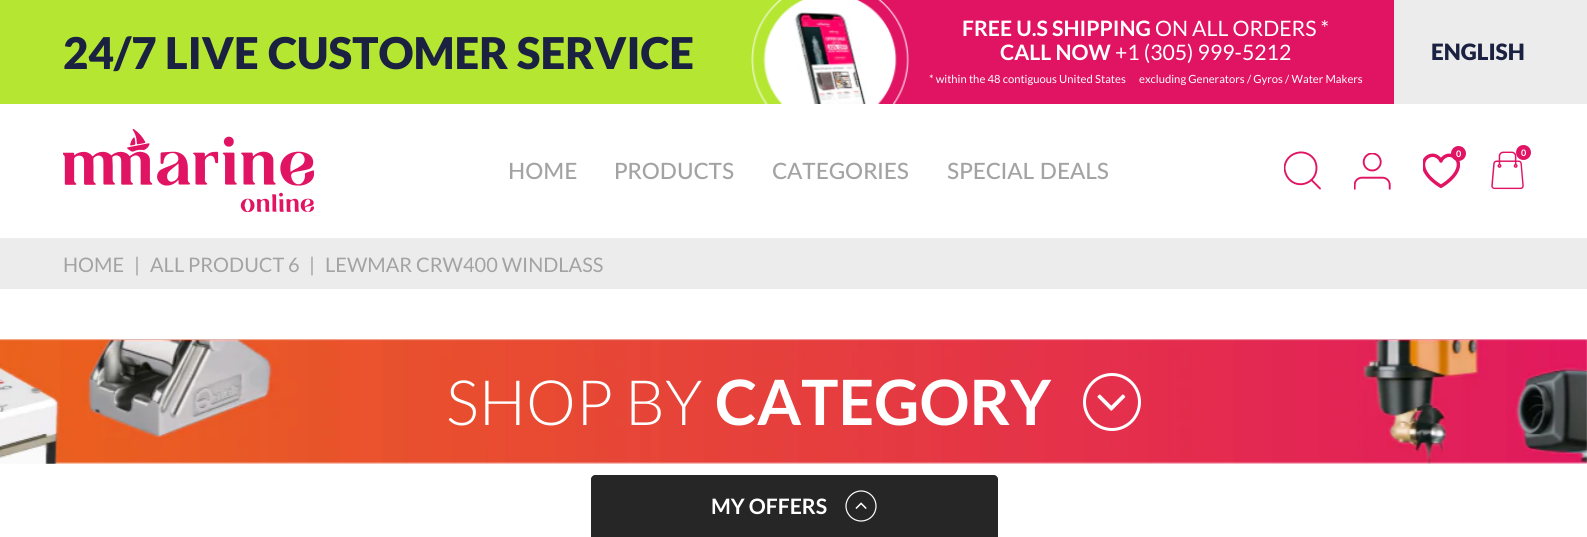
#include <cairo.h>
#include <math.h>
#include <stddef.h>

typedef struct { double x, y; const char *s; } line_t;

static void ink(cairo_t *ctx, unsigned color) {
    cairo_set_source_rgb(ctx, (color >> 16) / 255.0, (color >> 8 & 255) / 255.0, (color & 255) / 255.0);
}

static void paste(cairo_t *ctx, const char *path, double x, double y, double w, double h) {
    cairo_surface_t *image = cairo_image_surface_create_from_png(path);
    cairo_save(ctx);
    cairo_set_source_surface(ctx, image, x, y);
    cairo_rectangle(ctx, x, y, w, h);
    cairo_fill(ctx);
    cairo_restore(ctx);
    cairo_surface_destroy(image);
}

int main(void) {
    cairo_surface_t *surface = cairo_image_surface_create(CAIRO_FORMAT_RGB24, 1587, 537);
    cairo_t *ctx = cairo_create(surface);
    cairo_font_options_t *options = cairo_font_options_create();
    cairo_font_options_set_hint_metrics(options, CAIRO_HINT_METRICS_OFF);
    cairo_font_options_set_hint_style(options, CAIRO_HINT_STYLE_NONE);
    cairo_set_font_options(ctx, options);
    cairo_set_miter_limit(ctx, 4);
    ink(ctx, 0xFFFFFF);
    cairo_paint(ctx);
    ink(ctx, 0xB4E632);
    cairo_rectangle(ctx, 0, 0, 804, 104);
    cairo_fill(ctx);
    cairo_select_font_face(ctx, "Lato Black", CAIRO_FONT_SLANT_NORMAL, CAIRO_FONT_WEIGHT_NORMAL);
    cairo_set_font_size(ctx, 43.75);
    ink(ctx, 0x1A2141);
    cairo_move_to(ctx, 63, 69);
    cairo_show_text(ctx, "24/7 LIVE");
    cairo_move_to(ctx, 268, 69);
    cairo_show_text(ctx, "CUSTOMER SERVICE");
    ink(ctx, 0xE11464);
    cairo_rectangle(ctx, 856, 0, 538, 104);
    cairo_fill(ctx);
    paste(ctx, "media/1.png", 751, 0, 158, 104);
    cairo_select_font_face(ctx, "Lato", CAIRO_FONT_SLANT_NORMAL, CAIRO_FONT_WEIGHT_BOLD);
    cairo_set_font_size(ctx, 21.25);
    ink(ctx, 0xFFFFFF);
    cairo_move_to(ctx, 962, 36);
    cairo_show_text(ctx, "FREE U.S SHIPPING");
    cairo_select_font_face(ctx, "Lato", CAIRO_FONT_SLANT_NORMAL, CAIRO_FONT_WEIGHT_NORMAL);
    cairo_move_to(ctx, 1155, 36);
    cairo_show_text(ctx, "ON ALL ORDERS *");
    cairo_select_font_face(ctx, "Lato", CAIRO_FONT_SLANT_NORMAL, CAIRO_FONT_WEIGHT_BOLD);
    cairo_move_to(ctx, 1000, 60);
    cairo_show_text(ctx, "CALL NOW");
    cairo_select_font_face(ctx, "Lato", CAIRO_FONT_SLANT_NORMAL, CAIRO_FONT_WEIGHT_NORMAL);
    cairo_move_to(ctx, 1115, 60);
    cairo_show_text(ctx, "+1 (305) 999-5212");
    cairo_set_font_size(ctx, 11.25);
    cairo_move_to(ctx, 929, 83);
    cairo_show_text(ctx, "* within the 48 contiguous United States");
    cairo_move_to(ctx, 1139, 83);
    cairo_show_text(ctx, "excluding Generators / Gyros / Water Makers");
    ink(ctx, 0xEDECED);
    cairo_rectangle(ctx, 1394, 0, 193, 104);
    cairo_fill(ctx);
    cairo_select_font_face(ctx, "Lato Black", CAIRO_FONT_SLANT_NORMAL, CAIRO_FONT_WEIGHT_NORMAL);
    cairo_set_font_size(ctx, 22.5);
    ink(ctx, 0x1A2141);
    cairo_move_to(ctx, 1431, 60);
    cairo_show_text(ctx, "ENGLISH");
    paste(ctx, "media/2.png", 63, 129, 251, 83);
    cairo_save(ctx);
    cairo_rectangle(ctx, 1284, 151, 37, 39);
    cairo_clip(ctx);
    cairo_new_path(ctx);
    cairo_move_to(ctx, 1316.5, 168);
    cairo_curve_to(ctx, 1316.5, 164.5, 1315.5, 161, 1313.5, 158.5);
    cairo_curve_to(ctx, 1304, 146.5, 1284.5, 153.5, 1284.5, 168.5);
    cairo_curve_to(ctx, 1285, 172, 1286, 175.5, 1288.5, 178.5);
    cairo_curve_to(ctx, 1298, 190, 1316.5, 183, 1316.5, 168);
    cairo_close_path(ctx);
    ink(ctx, 0xE11464);
    cairo_set_line_width(ctx, 1.9);
    cairo_stroke(ctx);
    cairo_restore(ctx);
    cairo_new_path(ctx);
    cairo_move_to(ctx, 1311.5, 180);
    cairo_line_to(ctx, 1320, 188.5);
    ink(ctx, 0xE11464);
    cairo_set_line_width(ctx, 1.9);
    cairo_set_line_cap(ctx, CAIRO_LINE_CAP_ROUND);
    cairo_stroke(ctx);
    paste(ctx, "media/3.png", 1354, 153, 37, 37);
    paste(ctx, "media/4.png", 1423, 153, 37, 35);
    cairo_arc(ctx, 1458.5, 153.5, 7.5, 0, 2 * M_PI);
    cairo_fill(ctx);
    cairo_select_font_face(ctx, "Lato", CAIRO_FONT_SLANT_NORMAL, CAIRO_FONT_WEIGHT_BOLD);
    cairo_set_font_size(ctx, 9);
    ink(ctx, 0xFFFFFF);
    cairo_move_to(ctx, 1456, 157);
    cairo_show_text(ctx, "0");
    paste(ctx, "media/5.png", 1491, 151, 33, 39);
    ink(ctx, 0xE11464);
    cairo_arc(ctx, 1523.5, 152.5, 7.5, 0, 2 * M_PI);
    cairo_fill(ctx);
    ink(ctx, 0xFFFFFF);
    cairo_move_to(ctx, 1521, 156);
    cairo_show_text(ctx, "0");
    cairo_select_font_face(ctx, "Lato Medium", CAIRO_FONT_SLANT_NORMAL, CAIRO_FONT_WEIGHT_NORMAL);
    cairo_set_font_size(ctx, 22.5);
    ink(ctx, 0xA3A3A3);
    {
        static const line_t items[] = {
            {508, 179, "HOME"},
            {614, 179, "PRODUCTS"},
            {772, 179, "CATEGORIES"},
            {947, 179, "SPECIAL DEALS"},
        };
        for (size_t i = 0; i < sizeof items / sizeof *items; i++) {
            cairo_move_to(ctx, items[i].x, items[i].y);
            cairo_show_text(ctx, items[i].s);
        }
    }
    ink(ctx, 0xEDECED);
    cairo_rectangle(ctx, 0, 238, 1587, 51);
    cairo_fill(ctx);
    cairo_select_font_face(ctx, "Lato", CAIRO_FONT_SLANT_NORMAL, CAIRO_FONT_WEIGHT_NORMAL);
    cairo_set_font_size(ctx, 20);
    ink(ctx, 0xA3A3A3);
    {
        static const line_t items[] = {
            {63, 272, "HOME"},
            {134, 272, "|"},
            {150, 272, "ALL PRODUCT 6"},
            {309, 272, "|"},
            {325, 272, "LEWMAR CRW400 WINDLASS"},
        };
        for (size_t i = 0; i < sizeof items / sizeof *items; i++) {
            cairo_move_to(ctx, items[i].x, items[i].y);
            cairo_show_text(ctx, items[i].s);
        }
    }
    paste(ctx, "media/6.png", 0, 339, 1587, 125);
    cairo_select_font_face(ctx, "Lato Light", CAIRO_FONT_SLANT_NORMAL, CAIRO_FONT_WEIGHT_NORMAL);
    cairo_set_font_size(ctx, 62.5);
    ink(ctx, 0xFFFFFF);
    cairo_move_to(ctx, 446, 425);
    cairo_show_text(ctx, "SHOP BY");
    cairo_select_font_face(ctx, "Lato", CAIRO_FONT_SLANT_NORMAL, CAIRO_FONT_WEIGHT_BOLD);
    cairo_move_to(ctx, 715, 425);
    cairo_show_text(ctx, "CATEGORY");
    cairo_new_path(ctx);
    cairo_arc(ctx, 1112, 402, 27.5, 0, 2 * M_PI);
    cairo_set_line_width(ctx, 3);
    cairo_set_line_cap(ctx, CAIRO_LINE_CAP_BUTT);
    cairo_stroke(ctx);
    paste(ctx, "media/7.png", 1097, 394, 29, 17);
    ink(ctx, 0x262626);
    cairo_new_path(ctx);
    cairo_move_to(ctx, 595, 475);
    cairo_line_to(ctx, 994, 475);
    cairo_curve_to(ctx, 996, 475, 998, 477, 998, 479);
    cairo_line_to(ctx, 998, 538);
    cairo_line_to(ctx, 591, 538);
    cairo_line_to(ctx, 591, 479);
    cairo_curve_to(ctx, 591, 477, 593, 475, 595, 475);
    cairo_close_path(ctx);
    cairo_fill(ctx);
    cairo_set_font_size(ctx, 21.25);
    ink(ctx, 0xFFFFFF);
    cairo_move_to(ctx, 711, 514);
    cairo_show_text(ctx, "MY OFFERS");
    cairo_new_path(ctx);
    cairo_move_to(ctx, 861, 521);
    cairo_curve_to(ctx, 853, 521, 846, 514.5, 846, 506);
    cairo_curve_to(ctx, 846, 498, 853, 491, 861, 491);
    cairo_curve_to(ctx, 869.5, 491, 876, 498, 876, 506);
    cairo_curve_to(ctx, 876, 514.5, 869.5, 521, 861, 521);
    cairo_close_path(ctx);
    cairo_set_line_width(ctx, 1.2);
    cairo_stroke(ctx);
    paste(ctx, "media/8.png", 855, 502, 12, 7);
    cairo_surface_write_to_png(surface, "image.png");
    cairo_font_options_destroy(options);
    cairo_destroy(ctx);
    cairo_surface_destroy(surface);
    return 0;
}
